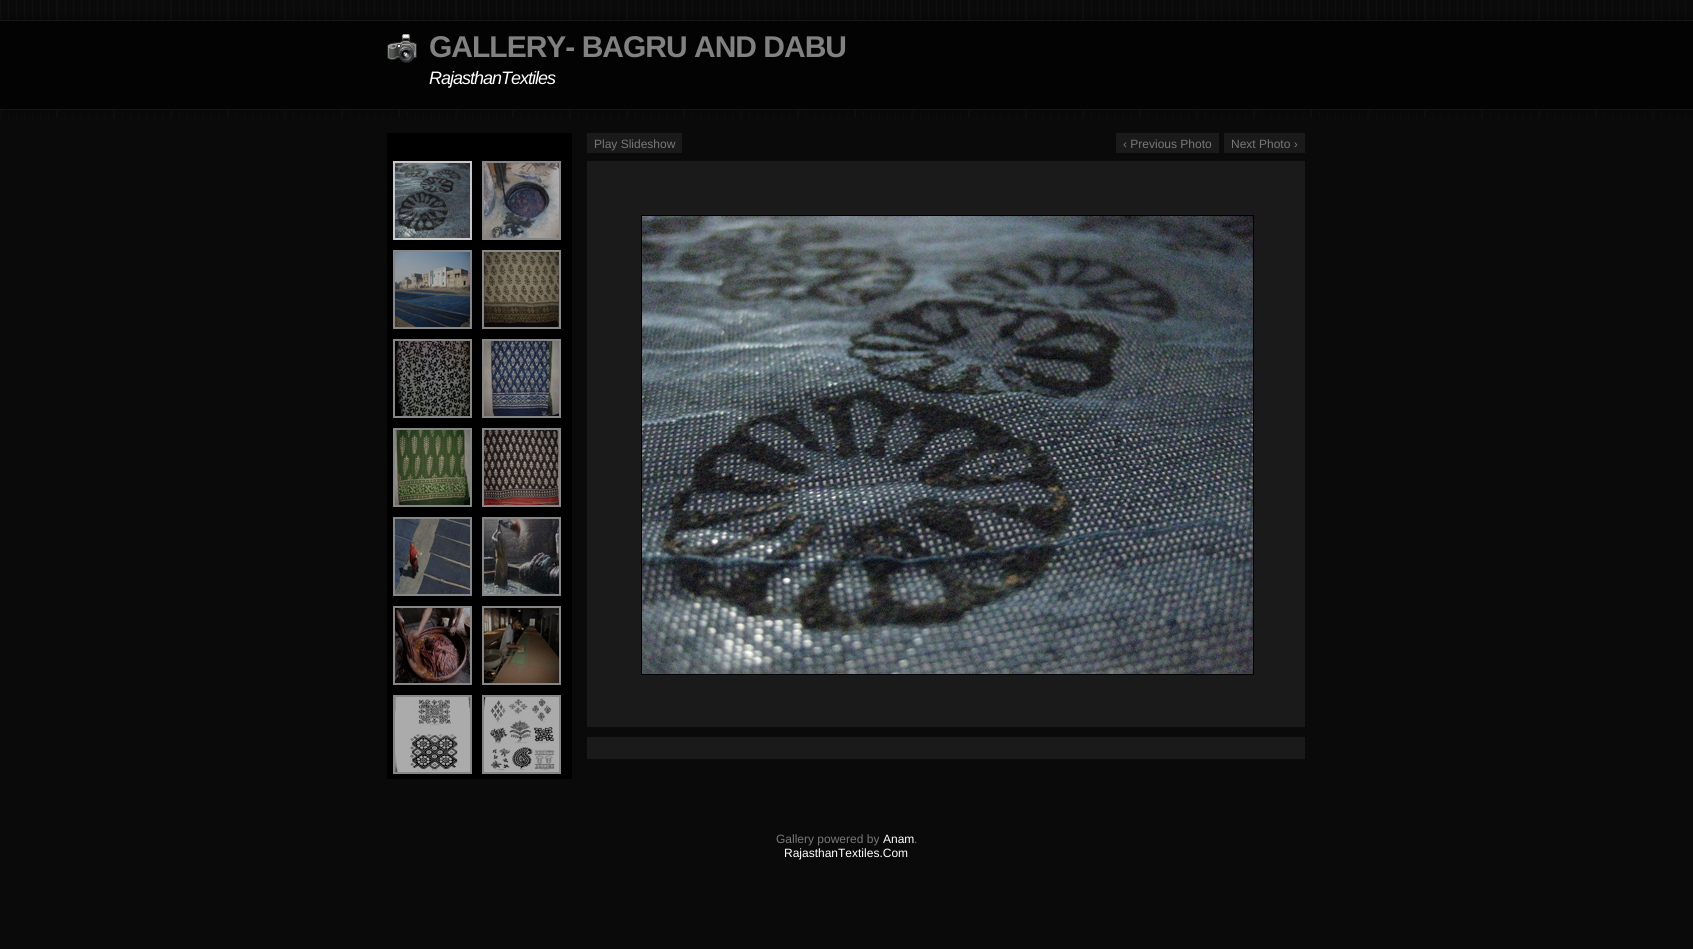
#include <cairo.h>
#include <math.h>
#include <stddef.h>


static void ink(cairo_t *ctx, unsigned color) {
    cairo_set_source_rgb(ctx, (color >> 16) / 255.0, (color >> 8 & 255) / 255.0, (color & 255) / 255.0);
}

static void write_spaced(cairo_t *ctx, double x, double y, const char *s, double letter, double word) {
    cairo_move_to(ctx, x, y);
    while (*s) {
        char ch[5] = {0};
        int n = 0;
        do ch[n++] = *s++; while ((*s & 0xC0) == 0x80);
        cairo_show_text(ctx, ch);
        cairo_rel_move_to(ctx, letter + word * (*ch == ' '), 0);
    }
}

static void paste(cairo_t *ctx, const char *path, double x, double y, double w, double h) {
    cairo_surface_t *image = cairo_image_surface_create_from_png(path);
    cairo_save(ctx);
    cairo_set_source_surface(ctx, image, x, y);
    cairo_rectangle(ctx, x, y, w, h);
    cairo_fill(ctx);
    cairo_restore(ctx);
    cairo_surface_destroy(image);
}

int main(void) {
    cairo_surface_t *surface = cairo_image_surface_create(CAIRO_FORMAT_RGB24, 1693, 949);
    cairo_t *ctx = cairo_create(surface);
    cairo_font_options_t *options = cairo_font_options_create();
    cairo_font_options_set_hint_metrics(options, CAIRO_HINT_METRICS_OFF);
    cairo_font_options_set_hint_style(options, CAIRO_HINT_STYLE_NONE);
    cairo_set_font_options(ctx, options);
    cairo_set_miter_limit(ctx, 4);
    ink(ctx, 0x0A0A0A);
    cairo_paint(ctx);
    paste(ctx, "media/1.png", 0, 0, 1693, 118);
    paste(ctx, "media/2.png", 387, 34, 30, 29);
    cairo_select_font_face(ctx, "Liberation Sans", CAIRO_FONT_SLANT_NORMAL, CAIRO_FONT_WEIGHT_BOLD);
    cairo_set_font_size(ctx, 30);
    ink(ctx, 0x818181);
    write_spaced(ctx, 429, 57, "GALLERY- BAGRU AND DABU", -1, 0);
    cairo_select_font_face(ctx, "Liberation Sans", CAIRO_FONT_SLANT_ITALIC, CAIRO_FONT_WEIGHT_NORMAL);
    cairo_set_font_size(ctx, 18);
    ink(ctx, 0xFFFFFF);
    write_spaced(ctx, 429, 84, "RajasthanTextiles", -1, 0);
    ink(ctx, 0x000000);
    cairo_rectangle(ctx, 387, 133, 185, 646);
    cairo_fill(ctx);
    cairo_rectangle(ctx, 394, 162, 77, 77);
    ink(ctx, 0xC8C8C8);
    cairo_stroke(ctx);
    paste(ctx, "media/3.png", 395, 163, 75, 75);
    cairo_rectangle(ctx, 483, 162, 77, 77);
    ink(ctx, 0x868686);
    cairo_stroke(ctx);
    paste(ctx, "media/4.png", 484, 163, 75, 75);
    cairo_rectangle(ctx, 394, 251, 77, 77);
    cairo_stroke(ctx);
    paste(ctx, "media/5.png", 395, 252, 75, 75);
    cairo_rectangle(ctx, 483, 251, 77, 77);
    cairo_stroke(ctx);
    paste(ctx, "media/6.png", 484, 252, 75, 75);
    cairo_rectangle(ctx, 394, 340, 77, 77);
    cairo_stroke(ctx);
    paste(ctx, "media/7.png", 395, 341, 75, 75);
    cairo_rectangle(ctx, 483, 340, 77, 77);
    cairo_stroke(ctx);
    paste(ctx, "media/8.png", 484, 341, 75, 75);
    cairo_rectangle(ctx, 394, 429, 77, 77);
    cairo_stroke(ctx);
    paste(ctx, "media/9.png", 395, 430, 75, 75);
    cairo_rectangle(ctx, 483, 429, 77, 77);
    cairo_stroke(ctx);
    paste(ctx, "media/10.png", 484, 430, 75, 75);
    cairo_rectangle(ctx, 394, 518, 77, 77);
    cairo_stroke(ctx);
    paste(ctx, "media/11.png", 395, 519, 75, 75);
    cairo_rectangle(ctx, 483, 518, 77, 77);
    cairo_stroke(ctx);
    paste(ctx, "media/12.png", 484, 519, 75, 75);
    cairo_rectangle(ctx, 394, 607, 77, 77);
    cairo_stroke(ctx);
    paste(ctx, "media/13.png", 395, 608, 75, 75);
    cairo_rectangle(ctx, 483, 607, 77, 77);
    cairo_stroke(ctx);
    paste(ctx, "media/14.png", 484, 608, 75, 75);
    cairo_rectangle(ctx, 394, 696, 77, 77);
    cairo_stroke(ctx);
    paste(ctx, "media/15.png", 395, 697, 75, 75);
    cairo_rectangle(ctx, 483, 696, 77, 77);
    cairo_stroke(ctx);
    paste(ctx, "media/16.png", 484, 697, 75, 75);
    ink(ctx, 0x1A1A1A);
    cairo_rectangle(ctx, 587, 133, 95, 20);
    cairo_fill(ctx);
    cairo_select_font_face(ctx, "Liberation Sans", CAIRO_FONT_SLANT_NORMAL, CAIRO_FONT_WEIGHT_NORMAL);
    cairo_set_font_size(ctx, 12);
    ink(ctx, 0x777777);
    cairo_move_to(ctx, 594, 148);
    cairo_show_text(ctx, "Play Slideshow");
    ink(ctx, 0x1A1A1A);
    cairo_rectangle(ctx, 1116, 133, 103, 20);
    cairo_fill(ctx);
    ink(ctx, 0x777777);
    cairo_move_to(ctx, 1123, 148);
    cairo_show_text(ctx, "‹ Previous Photo");
    ink(ctx, 0x1A1A1A);
    cairo_rectangle(ctx, 1224, 133, 81, 20);
    cairo_fill(ctx);
    ink(ctx, 0x777777);
    cairo_move_to(ctx, 1231, 148);
    cairo_show_text(ctx, "Next Photo ›");
    ink(ctx, 0x1A1A1A);
    cairo_rectangle(ctx, 587, 161, 718, 566);
    cairo_fill(ctx);
    cairo_rectangle(ctx, 641.5, 215.5, 612, 459);
    ink(ctx, 0x000000);
    cairo_set_line_width(ctx, 1);
    cairo_stroke(ctx);
    paste(ctx, "media/17.png", 642, 216, 611, 458);
    ink(ctx, 0x1A1A1A);
    cairo_rectangle(ctx, 587, 737, 718, 22);
    cairo_fill(ctx);
    ink(ctx, 0x777777);
    cairo_move_to(ctx, 776, 843);
    cairo_show_text(ctx, "Gallery powered by");
    ink(ctx, 0xFFFFFF);
    cairo_move_to(ctx, 883, 843);
    cairo_show_text(ctx, "Anam");
    ink(ctx, 0x777777);
    cairo_move_to(ctx, 914, 843);
    cairo_show_text(ctx, ".");
    ink(ctx, 0xFFFFFF);
    cairo_move_to(ctx, 784, 857);
    cairo_show_text(ctx, "RajasthanTextiles.Com");
    cairo_surface_write_to_png(surface, "image.png");
    cairo_font_options_destroy(options);
    cairo_destroy(ctx);
    cairo_surface_destroy(surface);
    return 0;
}
